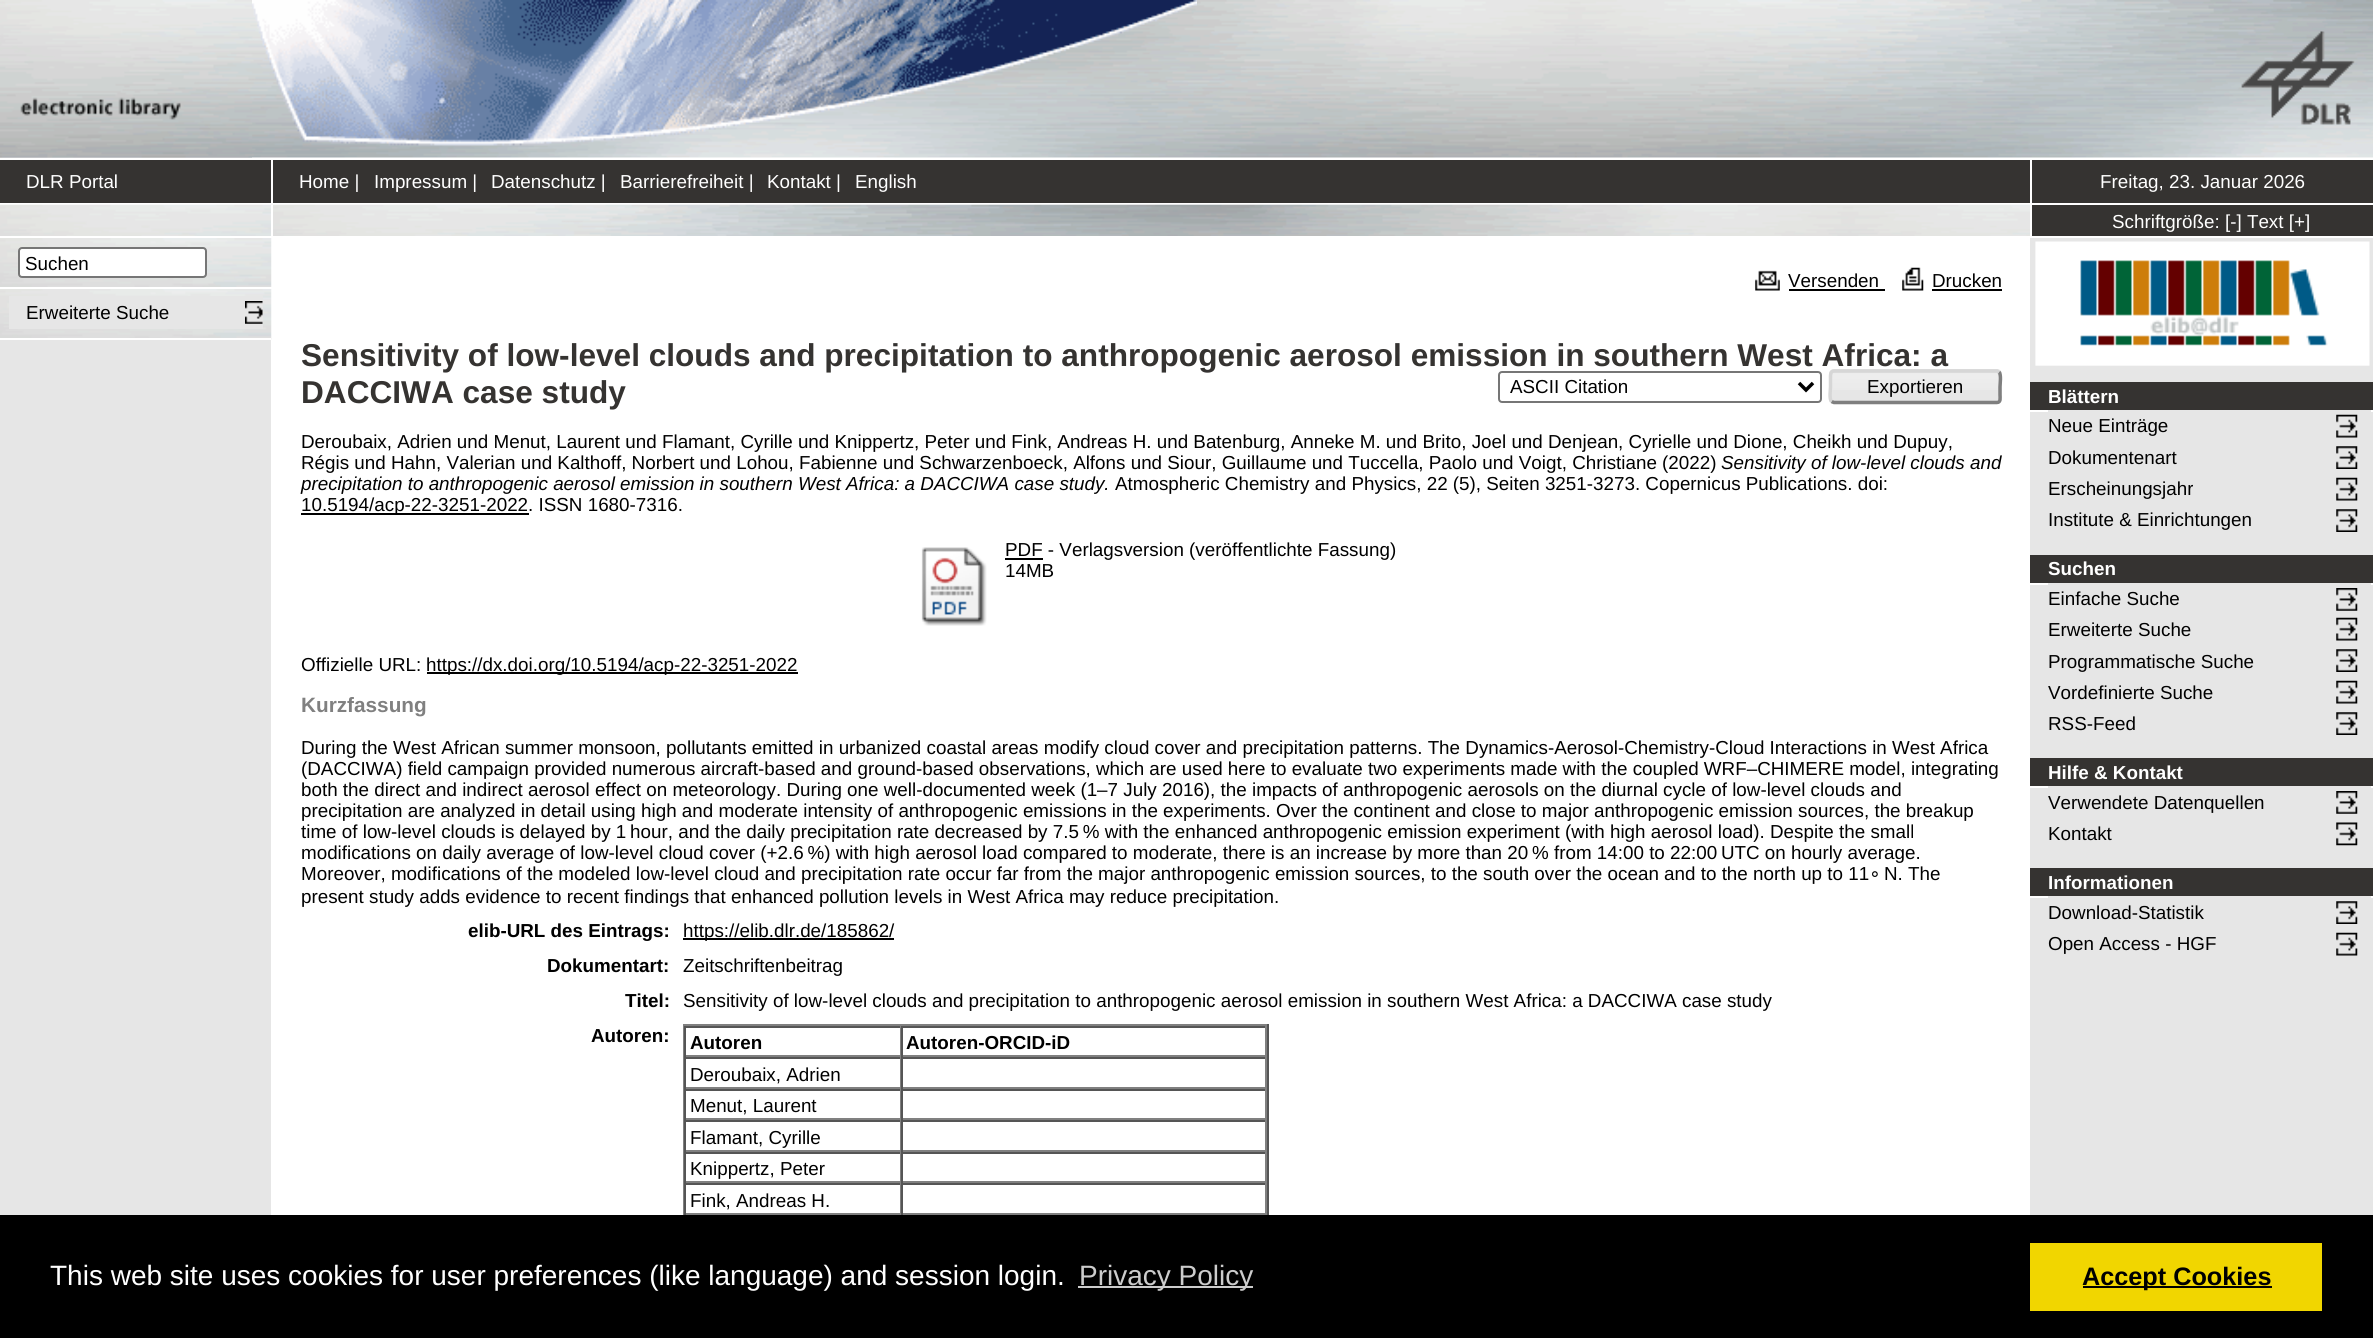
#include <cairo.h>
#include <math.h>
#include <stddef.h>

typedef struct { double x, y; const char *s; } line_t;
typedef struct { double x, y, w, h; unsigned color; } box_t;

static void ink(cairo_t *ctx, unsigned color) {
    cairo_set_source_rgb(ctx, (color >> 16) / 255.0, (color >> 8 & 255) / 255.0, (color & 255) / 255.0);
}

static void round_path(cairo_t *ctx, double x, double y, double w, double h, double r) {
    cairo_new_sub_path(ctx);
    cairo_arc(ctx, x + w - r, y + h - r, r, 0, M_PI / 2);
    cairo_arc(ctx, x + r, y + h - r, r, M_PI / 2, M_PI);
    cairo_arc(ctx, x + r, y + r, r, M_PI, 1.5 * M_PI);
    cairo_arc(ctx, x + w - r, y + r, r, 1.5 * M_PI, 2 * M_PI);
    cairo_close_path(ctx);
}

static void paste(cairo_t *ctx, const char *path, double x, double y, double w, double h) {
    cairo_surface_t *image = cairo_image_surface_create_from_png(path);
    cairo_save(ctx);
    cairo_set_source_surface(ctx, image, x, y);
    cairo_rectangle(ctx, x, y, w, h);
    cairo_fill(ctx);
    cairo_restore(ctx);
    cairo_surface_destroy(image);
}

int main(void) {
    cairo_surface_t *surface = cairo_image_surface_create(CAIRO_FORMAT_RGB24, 2373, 1338);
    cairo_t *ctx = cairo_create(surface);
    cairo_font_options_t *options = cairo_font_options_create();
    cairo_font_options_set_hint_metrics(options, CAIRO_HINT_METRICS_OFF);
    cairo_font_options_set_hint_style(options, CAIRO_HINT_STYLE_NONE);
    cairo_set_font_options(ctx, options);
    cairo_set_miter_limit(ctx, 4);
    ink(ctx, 0xFFFFFF);
    cairo_paint(ctx);
    paste(ctx, "media/1.png", 0, 0, 2373, 158);
    paste(ctx, "media/2.png", 0, 97, 252, 61);
    paste(ctx, "media/3.png", 252, 0, 945, 146);
    paste(ctx, "media/4.png", 2241, 31, 114, 94);
    ink(ctx, 0xE6E6E6);
    cairo_rectangle(ctx, 0, 238, 2373, 977);
    cairo_fill(ctx);
    ink(ctx, 0x353331);
    cairo_rectangle(ctx, 0, 160, 271, 43);
    cairo_fill(ctx);
    cairo_select_font_face(ctx, "Liberation Sans", CAIRO_FONT_SLANT_NORMAL, CAIRO_FONT_WEIGHT_NORMAL);
    cairo_set_font_size(ctx, 18.82);
    ink(ctx, 0xFFFFFF);
    cairo_move_to(ctx, 26, 188);
    cairo_show_text(ctx, "DLR Portal");
    ink(ctx, 0x353331);
    cairo_rectangle(ctx, 273, 160, 1757, 43);
    cairo_fill(ctx);
    ink(ctx, 0xFFFFFF);
    {
        static const line_t items[] = {
            {299, 188, "Home |"},
            {374, 188, "Impressum |"},
            {491, 188, "Datenschutz |"},
            {620, 188, "Barrierefreiheit |"},
            {767, 188, "Kontakt |"},
            {855, 188, "English"},
        };
        for (size_t i = 0; i < sizeof items / sizeof *items; i++) {
            cairo_move_to(ctx, items[i].x, items[i].y);
            cairo_show_text(ctx, items[i].s);
        }
    }
    ink(ctx, 0x353331);
    cairo_rectangle(ctx, 2032, 160, 341, 43);
    cairo_fill(ctx);
    ink(ctx, 0xFFFFFF);
    cairo_move_to(ctx, 2100, 188);
    cairo_show_text(ctx, "Freitag, 23. Januar 2026");
    paste(ctx, "media/5.png", 0, 204, 273, 32);
    cairo_rectangle(ctx, 271, 205, 2, 1010);
    cairo_fill(ctx);
    paste(ctx, "media/6.png", 273, 204, 1757, 32);
    ink(ctx, 0x353331);
    cairo_rectangle(ctx, 2032, 205, 341, 31);
    cairo_fill(ctx);
    ink(ctx, 0xFFFFFF);
    cairo_move_to(ctx, 2112, 228);
    cairo_show_text(ctx, "Schriftgröße: [-] Text [+]");
    paste(ctx, "media/7.png", 0, 238, 272, 49);
    round_path(ctx, 19, 248, 187, 29, 3);
    cairo_fill_preserve(ctx);
    ink(ctx, 0x767676);
    cairo_stroke(ctx);
    ink(ctx, 0x000000);
    cairo_move_to(ctx, 25, 270);
    cairo_show_text(ctx, "Suchen");
    paste(ctx, "media/8.png", 0, 289, 272, 51);
    {
        static const box_t items[] = {
            {0, 287, 271, 2, 0xFFFFFF},
            {0, 338, 271, 2, 0xFFFFFF},
            {9, 296, 254, 33, 0xE6E6E6},
        };
        for (size_t i = 0; i < sizeof items / sizeof *items; i++) {
            ink(ctx, items[i].color);
            cairo_rectangle(ctx, items[i].x, items[i].y, items[i].w, items[i].h);
            cairo_fill(ctx);
        }
    }
    paste(ctx, "media/9.png", 245, 301, 18, 23);
    ink(ctx, 0x000000);
    cairo_move_to(ctx, 26, 319);
    cairo_show_text(ctx, "Erweiterte Suche");
    ink(ctx, 0xFFFFFF);
    cairo_rectangle(ctx, 273, 238, 1757, 977);
    cairo_fill(ctx);
    paste(ctx, "media/10.png", 1755, 270, 25, 21);
    ink(ctx, 0x000000);
    cairo_move_to(ctx, 1788, 287);
    cairo_show_text(ctx, "Versenden");
    cairo_rectangle(ctx, 1789, 289, 96, 2);
    cairo_fill(ctx);
    paste(ctx, "media/11.png", 1902, 267, 22, 24);
    cairo_move_to(ctx, 1932, 287);
    cairo_show_text(ctx, "Drucken");
    cairo_rectangle(ctx, 1932, 289, 70, 2);
    cairo_fill(ctx);
    round_path(ctx, 1499, 372, 322, 30, 3);
    ink(ctx, 0x767676);
    cairo_stroke(ctx);
    cairo_select_font_face(ctx, "Liberation Sans", CAIRO_FONT_SLANT_NORMAL, CAIRO_FONT_WEIGHT_BOLD);
    cairo_set_font_size(ctx, 31.6);
    ink(ctx, 0x353331);
    cairo_move_to(ctx, 301, 366);
    cairo_show_text(ctx, "Sensitivity of low-level clouds and precipitation to anthropogenic aerosol emission in southern West Africa: a");
    cairo_move_to(ctx, 301, 403);
    cairo_show_text(ctx, "DACCIWA case study");
    cairo_new_path(ctx);
    cairo_move_to(ctx, 1799, 383);
    cairo_line_to(ctx, 1806, 390);
    cairo_line_to(ctx, 1813, 383);
    ink(ctx, 0x000000);
    cairo_set_line_width(ctx, 3.5);
    cairo_stroke(ctx);
    cairo_select_font_face(ctx, "Liberation Sans", CAIRO_FONT_SLANT_NORMAL, CAIRO_FONT_WEIGHT_NORMAL);
    cairo_set_font_size(ctx, 18.82);
    cairo_move_to(ctx, 1510, 393);
    cairo_show_text(ctx, "ASCII Citation");
    ink(ctx, 0xE6E6E6);
    round_path(ctx, 1829, 369, 173, 35, 5);
    cairo_fill(ctx);
    paste(ctx, "media/12.png", 1829, 373, 173, 17);
    cairo_new_path(ctx);
    cairo_move_to(ctx, 1999, 372);
    cairo_curve_to(ctx, 2001.5, 374.5, 2000, 384, 2000, 387);
    cairo_line_to(ctx, 2000, 395);
    cairo_curve_to(ctx, 2000, 397.5, 2001, 402.5, 1997, 402.5);
    cairo_line_to(ctx, 1834, 402.5);
    cairo_line_to(ctx, 1831.5, 401.5);
    ink(ctx, 0x7F7F7F);
    cairo_stroke(ctx);
    cairo_new_path(ctx);
    cairo_move_to(ctx, 1831.5, 401.5);
    cairo_curve_to(ctx, 1829, 399, 1830.5, 389.5, 1830.5, 387);
    cairo_line_to(ctx, 1830.5, 378.5);
    cairo_curve_to(ctx, 1830.5, 376, 1830, 371, 1834, 371);
    cairo_line_to(ctx, 1997, 371);
    cairo_line_to(ctx, 1999, 372);
    ink(ctx, 0xD6D6D6);
    cairo_stroke(ctx);
    ink(ctx, 0x000000);
    {
        static const line_t items[] = {
            {1867, 393, "Exportieren"},
            {301, 448, "Deroubaix, Adrien und Menut, Laurent und Flamant, Cyrille und Knippertz, Peter und Fink, Andreas H. und Batenburg, Anneke M. und Brito, Joel und Denjean, Cyrielle und Dione, Cheikh und Dupuy,"},
            {301, 469, "Régis und Hahn, Valerian und Kalthoff, Norbert und Lohou, Fabienne und Schwarzenboeck, Alfons und Siour, Guillaume und Tuccella, Paolo und Voigt, Christiane (2022)"},
        };
        for (size_t i = 0; i < sizeof items / sizeof *items; i++) {
            cairo_move_to(ctx, items[i].x, items[i].y);
            cairo_show_text(ctx, items[i].s);
        }
    }
    cairo_select_font_face(ctx, "Liberation Sans", CAIRO_FONT_SLANT_ITALIC, CAIRO_FONT_WEIGHT_NORMAL);
    cairo_move_to(ctx, 1721, 469);
    cairo_show_text(ctx, "Sensitivity of low-level clouds and");
    cairo_move_to(ctx, 301, 490);
    cairo_show_text(ctx, "precipitation to anthropogenic aerosol emission in southern West Africa: a DACCIWA case study.");
    cairo_select_font_face(ctx, "Liberation Sans", CAIRO_FONT_SLANT_NORMAL, CAIRO_FONT_WEIGHT_NORMAL);
    cairo_move_to(ctx, 1115, 490);
    cairo_show_text(ctx, "Atmospheric Chemistry and Physics, 22 (5), Seiten 3251-3273. Copernicus Publications. doi:");
    cairo_rectangle(ctx, 301, 513, 228, 2);
    cairo_fill(ctx);
    cairo_move_to(ctx, 301, 511);
    cairo_show_text(ctx, "10.5194/acp-22-3251-2022. ISSN 1680-7316.");
    paste(ctx, "media/13.png", 921, 547, 66, 79);
    cairo_rectangle(ctx, 1005, 558, 38, 2);
    cairo_fill(ctx);
    {
        static const line_t items[] = {
            {1005, 556, "PDF - Verlagsversion (veröffentlichte Fassung)"},
            {1005, 577, "14MB"},
            {301, 671, "Offizielle URL:"},
        };
        for (size_t i = 0; i < sizeof items / sizeof *items; i++) {
            cairo_move_to(ctx, items[i].x, items[i].y);
            cairo_show_text(ctx, items[i].s);
        }
    }
    cairo_rectangle(ctx, 427, 672, 371, 2);
    cairo_fill(ctx);
    cairo_move_to(ctx, 426, 671);
    cairo_show_text(ctx, "https://dx.doi.org/10.5194/acp-22-3251-2022");
    cairo_select_font_face(ctx, "Liberation Sans", CAIRO_FONT_SLANT_NORMAL, CAIRO_FONT_WEIGHT_BOLD);
    cairo_set_font_size(ctx, 20.75);
    ink(ctx, 0x808080);
    cairo_move_to(ctx, 301, 712);
    cairo_show_text(ctx, "Kurzfassung");
    cairo_select_font_face(ctx, "Liberation Sans", CAIRO_FONT_SLANT_NORMAL, CAIRO_FONT_WEIGHT_NORMAL);
    cairo_set_font_size(ctx, 18.82);
    ink(ctx, 0x000000);
    {
        static const line_t items[] = {
            {301, 754, "During the West African summer monsoon, pollutants emitted in urbanized coastal areas modify cloud cover and precipitation patterns. The Dynamics-Aerosol-Chemistry-Cloud Interactions in West Africa"},
            {301, 775, "(DACCIWA) field campaign provided numerous aircraft-based and ground-based observations, which are used here to evaluate two experiments made with the coupled WRF–CHIMERE model, integrating"},
            {301, 796, "both the direct and indirect aerosol effect on meteorology. During one well-documented week (1–7 July 2016), the impacts of anthropogenic aerosols on the diurnal cycle of low-level clouds and"},
            {301, 817, "precipitation are analyzed in detail using high and moderate intensity of anthropogenic emissions in the experiments. Over the continent and close to major anthropogenic emission sources, the breakup"},
            {301, 838, "time of low-level clouds is delayed by 1 hour, and the daily precipitation rate decreased by 7.5 % with the enhanced anthropogenic emission experiment (with high aerosol load). Despite the small"},
            {301, 859, "modifications on daily average of low-level cloud cover (+2.6 %) with high aerosol load compared to moderate, there is an increase by more than 20 % from 14:00 to 22:00 UTC on hourly average."},
            {301, 880, "Moreover, modifications of the modeled low-level cloud and precipitation rate occur far from the major anthropogenic emission sources, to the south over the ocean and to the north up to 11"},
        };
        for (size_t i = 0; i < sizeof items / sizeof *items; i++) {
            cairo_move_to(ctx, items[i].x, items[i].y);
            cairo_show_text(ctx, items[i].s);
        }
    }
    cairo_select_font_face(ctx, "DejaVu Sans", CAIRO_FONT_SLANT_NORMAL, CAIRO_FONT_WEIGHT_NORMAL);
    cairo_move_to(ctx, 1869, 880);
    cairo_show_text(ctx, "∘");
    cairo_select_font_face(ctx, "Liberation Sans", CAIRO_FONT_SLANT_NORMAL, CAIRO_FONT_WEIGHT_NORMAL);
    cairo_move_to(ctx, 1884, 880);
    cairo_show_text(ctx, "N. The");
    cairo_move_to(ctx, 301, 903);
    cairo_show_text(ctx, "present study adds evidence to recent findings that enhanced pollution levels in West Africa may reduce precipitation.");
    cairo_select_font_face(ctx, "Liberation Sans", CAIRO_FONT_SLANT_NORMAL, CAIRO_FONT_WEIGHT_BOLD);
    cairo_move_to(ctx, 468, 937);
    cairo_show_text(ctx, "elib-URL des Eintrags:");
    cairo_rectangle(ctx, 683, 938, 211, 2);
    cairo_fill(ctx);
    cairo_select_font_face(ctx, "Liberation Sans", CAIRO_FONT_SLANT_NORMAL, CAIRO_FONT_WEIGHT_NORMAL);
    cairo_move_to(ctx, 683, 937);
    cairo_show_text(ctx, "https://elib.dlr.de/185862/");
    cairo_select_font_face(ctx, "Liberation Sans", CAIRO_FONT_SLANT_NORMAL, CAIRO_FONT_WEIGHT_BOLD);
    cairo_move_to(ctx, 547, 972);
    cairo_show_text(ctx, "Dokumentart:");
    cairo_select_font_face(ctx, "Liberation Sans", CAIRO_FONT_SLANT_NORMAL, CAIRO_FONT_WEIGHT_NORMAL);
    cairo_move_to(ctx, 683, 972);
    cairo_show_text(ctx, "Zeitschriftenbeitrag");
    cairo_select_font_face(ctx, "Liberation Sans", CAIRO_FONT_SLANT_NORMAL, CAIRO_FONT_WEIGHT_BOLD);
    cairo_move_to(ctx, 625, 1007);
    cairo_show_text(ctx, "Titel:");
    cairo_select_font_face(ctx, "Liberation Sans", CAIRO_FONT_SLANT_NORMAL, CAIRO_FONT_WEIGHT_NORMAL);
    cairo_move_to(ctx, 683, 1007);
    cairo_show_text(ctx, "Sensitivity of low-level clouds and precipitation to anthropogenic aerosol emission in southern West Africa: a DACCIWA case study");
    cairo_select_font_face(ctx, "Liberation Sans", CAIRO_FONT_SLANT_NORMAL, CAIRO_FONT_WEIGHT_BOLD);
    cairo_move_to(ctx, 591, 1042);
    cairo_show_text(ctx, "Autoren:");
    {
        static const box_t items[] = {
            {683, 1024, 586, 2, 0x808080},
            {1267, 1024, 2, 191, 0x555555},
            {683, 1024, 2, 191, 0x808080},
            {684, 1026, 583, 2, 0x555555},
            {900, 1026, 1, 31, 0x808080},
            {684, 1055, 217, 2, 0x808080},
            {684, 1026, 2, 31, 0x555555},
        };
        for (size_t i = 0; i < sizeof items / sizeof *items; i++) {
            ink(ctx, items[i].color);
            cairo_rectangle(ctx, items[i].x, items[i].y, items[i].w, items[i].h);
            cairo_fill(ctx);
        }
    }
    ink(ctx, 0x000000);
    cairo_move_to(ctx, 690, 1049);
    cairo_show_text(ctx, "Autoren");
    {
        static const box_t items[] = {
            {1265, 1026, 2, 31, 0x808080},
            {901, 1055, 366, 2, 0x808080},
            {901, 1026, 2, 31, 0x555555},
        };
        for (size_t i = 0; i < sizeof items / sizeof *items; i++) {
            ink(ctx, items[i].color);
            cairo_rectangle(ctx, items[i].x, items[i].y, items[i].w, items[i].h);
            cairo_fill(ctx);
        }
    }
    ink(ctx, 0x000000);
    cairo_move_to(ctx, 906, 1049);
    cairo_show_text(ctx, "Autoren-ORCID-iD");
    {
        static const box_t items[] = {
            {684, 1057, 583, 2, 0x555555},
            {900, 1057, 1, 32, 0x808080},
            {684, 1087, 217, 2, 0x808080},
            {684, 1057, 2, 32, 0x555555},
        };
        for (size_t i = 0; i < sizeof items / sizeof *items; i++) {
            ink(ctx, items[i].color);
            cairo_rectangle(ctx, items[i].x, items[i].y, items[i].w, items[i].h);
            cairo_fill(ctx);
        }
    }
    cairo_select_font_face(ctx, "Liberation Sans", CAIRO_FONT_SLANT_NORMAL, CAIRO_FONT_WEIGHT_NORMAL);
    ink(ctx, 0x000000);
    cairo_move_to(ctx, 690, 1081);
    cairo_show_text(ctx, "Deroubaix, Adrien");
    {
        static const box_t items[] = {
            {1265, 1057, 2, 32, 0x808080},
            {901, 1087, 366, 2, 0x808080},
            {901, 1057, 2, 32, 0x555555},
            {684, 1089, 583, 2, 0x555555},
            {900, 1089, 1, 31, 0x808080},
            {684, 1118, 217, 2, 0x808080},
            {684, 1089, 2, 31, 0x555555},
        };
        for (size_t i = 0; i < sizeof items / sizeof *items; i++) {
            ink(ctx, items[i].color);
            cairo_rectangle(ctx, items[i].x, items[i].y, items[i].w, items[i].h);
            cairo_fill(ctx);
        }
    }
    ink(ctx, 0x000000);
    cairo_move_to(ctx, 690, 1112);
    cairo_show_text(ctx, "Menut, Laurent");
    {
        static const box_t items[] = {
            {1265, 1089, 2, 31, 0x808080},
            {901, 1118, 366, 2, 0x808080},
            {901, 1089, 2, 31, 0x555555},
            {684, 1120, 583, 2, 0x555555},
            {900, 1120, 1, 32, 0x808080},
            {684, 1150, 217, 2, 0x808080},
            {684, 1120, 2, 32, 0x555555},
        };
        for (size_t i = 0; i < sizeof items / sizeof *items; i++) {
            ink(ctx, items[i].color);
            cairo_rectangle(ctx, items[i].x, items[i].y, items[i].w, items[i].h);
            cairo_fill(ctx);
        }
    }
    ink(ctx, 0x000000);
    cairo_move_to(ctx, 690, 1144);
    cairo_show_text(ctx, "Flamant, Cyrille");
    {
        static const box_t items[] = {
            {1265, 1120, 2, 32, 0x808080},
            {901, 1150, 366, 2, 0x808080},
            {901, 1120, 2, 32, 0x555555},
            {684, 1152, 583, 2, 0x555555},
            {900, 1152, 1, 31, 0x808080},
            {684, 1181, 217, 2, 0x808080},
            {684, 1152, 2, 31, 0x555555},
        };
        for (size_t i = 0; i < sizeof items / sizeof *items; i++) {
            ink(ctx, items[i].color);
            cairo_rectangle(ctx, items[i].x, items[i].y, items[i].w, items[i].h);
            cairo_fill(ctx);
        }
    }
    ink(ctx, 0x000000);
    cairo_move_to(ctx, 690, 1175);
    cairo_show_text(ctx, "Knippertz, Peter");
    {
        static const box_t items[] = {
            {1265, 1152, 2, 31, 0x808080},
            {901, 1181, 366, 2, 0x808080},
            {901, 1152, 2, 31, 0x555555},
            {684, 1183, 583, 2, 0x555555},
            {900, 1183, 1, 32, 0x808080},
            {684, 1213, 217, 2, 0x808080},
            {684, 1183, 2, 32, 0x555555},
        };
        for (size_t i = 0; i < sizeof items / sizeof *items; i++) {
            ink(ctx, items[i].color);
            cairo_rectangle(ctx, items[i].x, items[i].y, items[i].w, items[i].h);
            cairo_fill(ctx);
        }
    }
    ink(ctx, 0x000000);
    cairo_move_to(ctx, 690, 1207);
    cairo_show_text(ctx, "Fink, Andreas H.");
    {
        static const box_t items[] = {
            {1265, 1183, 2, 32, 0x808080},
            {901, 1213, 366, 2, 0x808080},
            {901, 1183, 2, 32, 0x555555},
        };
        for (size_t i = 0; i < sizeof items / sizeof *items; i++) {
            ink(ctx, items[i].color);
            cairo_rectangle(ctx, items[i].x, items[i].y, items[i].w, items[i].h);
            cairo_fill(ctx);
        }
    }
    paste(ctx, "media/14.png", 2035, 241, 335, 125);
    ink(ctx, 0x353331);
    cairo_rectangle(ctx, 2030, 382, 343, 28);
    cairo_fill(ctx);
    ink(ctx, 0xFFFFFF);
    cairo_rectangle(ctx, 2030, 410, 343, 2);
    cairo_fill(ctx);
    cairo_select_font_face(ctx, "Liberation Sans", CAIRO_FONT_SLANT_NORMAL, CAIRO_FONT_WEIGHT_BOLD);
    cairo_move_to(ctx, 2048, 403);
    cairo_show_text(ctx, "Blättern");
    ink(ctx, 0xE6E6E6);
    cairo_rectangle(ctx, 2048, 410, 323, 2);
    cairo_fill(ctx);
    paste(ctx, "media/15.png", 2336, 414, 22, 24);
    cairo_select_font_face(ctx, "Liberation Sans", CAIRO_FONT_SLANT_NORMAL, CAIRO_FONT_WEIGHT_NORMAL);
    ink(ctx, 0x000000);
    cairo_move_to(ctx, 2048, 432);
    cairo_show_text(ctx, "Neue Einträge");
    paste(ctx, "media/16.png", 2336, 446, 22, 23);
    cairo_move_to(ctx, 2048, 464);
    cairo_show_text(ctx, "Dokumentenart");
    paste(ctx, "media/15.png", 2336, 477, 22, 24);
    cairo_move_to(ctx, 2048, 495);
    cairo_show_text(ctx, "Erscheinungsjahr");
    paste(ctx, "media/16.png", 2336, 509, 22, 23);
    cairo_move_to(ctx, 2048, 526);
    cairo_show_text(ctx, "Institute & Einrichtungen");
    ink(ctx, 0x353331);
    cairo_rectangle(ctx, 2030, 555, 343, 28);
    cairo_fill(ctx);
    ink(ctx, 0xFFFFFF);
    cairo_rectangle(ctx, 2030, 583, 343, 2);
    cairo_fill(ctx);
    cairo_select_font_face(ctx, "Liberation Sans", CAIRO_FONT_SLANT_NORMAL, CAIRO_FONT_WEIGHT_BOLD);
    cairo_move_to(ctx, 2048, 575);
    cairo_show_text(ctx, "Suchen");
    ink(ctx, 0xE6E6E6);
    cairo_rectangle(ctx, 2048, 583, 323, 2);
    cairo_fill(ctx);
    paste(ctx, "media/17.png", 2336, 588, 22, 23);
    cairo_select_font_face(ctx, "Liberation Sans", CAIRO_FONT_SLANT_NORMAL, CAIRO_FONT_WEIGHT_NORMAL);
    ink(ctx, 0x000000);
    cairo_move_to(ctx, 2048, 605);
    cairo_show_text(ctx, "Einfache Suche");
    paste(ctx, "media/15.png", 2336, 617, 22, 24);
    cairo_move_to(ctx, 2048, 636);
    cairo_show_text(ctx, "Erweiterte Suche");
    paste(ctx, "media/16.png", 2336, 649, 22, 23);
    cairo_move_to(ctx, 2048, 668);
    cairo_show_text(ctx, "Programmatische Suche");
    paste(ctx, "media/15.png", 2336, 680, 22, 24);
    cairo_move_to(ctx, 2048, 699);
    cairo_show_text(ctx, "Vordefinierte Suche");
    paste(ctx, "media/16.png", 2336, 712, 22, 23);
    cairo_move_to(ctx, 2048, 730);
    cairo_show_text(ctx, "RSS-Feed");
    ink(ctx, 0x353331);
    cairo_rectangle(ctx, 2030, 758, 343, 28);
    cairo_fill(ctx);
    ink(ctx, 0xFFFFFF);
    cairo_rectangle(ctx, 2030, 786, 343, 2);
    cairo_fill(ctx);
    cairo_select_font_face(ctx, "Liberation Sans", CAIRO_FONT_SLANT_NORMAL, CAIRO_FONT_WEIGHT_BOLD);
    cairo_move_to(ctx, 2048, 779);
    cairo_show_text(ctx, "Hilfe & Kontakt");
    ink(ctx, 0xE6E6E6);
    cairo_rectangle(ctx, 2048, 786, 323, 2);
    cairo_fill(ctx);
    paste(ctx, "media/17.png", 2336, 791, 22, 23);
    cairo_select_font_face(ctx, "Liberation Sans", CAIRO_FONT_SLANT_NORMAL, CAIRO_FONT_WEIGHT_NORMAL);
    ink(ctx, 0x000000);
    cairo_move_to(ctx, 2048, 809);
    cairo_show_text(ctx, "Verwendete Datenquellen");
    paste(ctx, "media/18.png", 2336, 822, 22, 24);
    cairo_move_to(ctx, 2048, 840);
    cairo_show_text(ctx, "Kontakt");
    ink(ctx, 0x353331);
    cairo_rectangle(ctx, 2030, 868, 343, 28);
    cairo_fill(ctx);
    ink(ctx, 0xFFFFFF);
    cairo_rectangle(ctx, 2030, 896, 343, 2);
    cairo_fill(ctx);
    cairo_select_font_face(ctx, "Liberation Sans", CAIRO_FONT_SLANT_NORMAL, CAIRO_FONT_WEIGHT_BOLD);
    cairo_move_to(ctx, 2048, 889);
    cairo_show_text(ctx, "Informationen");
    ink(ctx, 0xE6E6E6);
    cairo_rectangle(ctx, 2048, 896, 323, 2);
    cairo_fill(ctx);
    paste(ctx, "media/16.png", 2336, 901, 22, 23);
    cairo_select_font_face(ctx, "Liberation Sans", CAIRO_FONT_SLANT_NORMAL, CAIRO_FONT_WEIGHT_NORMAL);
    ink(ctx, 0x000000);
    cairo_move_to(ctx, 2048, 919);
    cairo_show_text(ctx, "Download-Statistik");
    paste(ctx, "media/15.png", 2336, 932, 22, 24);
    cairo_move_to(ctx, 2048, 950);
    cairo_show_text(ctx, "Open Access - HGF");
    cairo_rectangle(ctx, 0, 1215, 2373, 123);
    cairo_fill(ctx);
    cairo_set_font_size(ctx, 28);
    ink(ctx, 0xFFFFFF);
    cairo_move_to(ctx, 50, 1285);
    cairo_show_text(ctx, "This web site uses cookies for user preferences (like language) and session login.");
    ink(ctx, 0xCCCCCC);
    cairo_rectangle(ctx, 1078, 1286, 175, 2);
    cairo_fill(ctx);
    cairo_move_to(ctx, 1079, 1285);
    cairo_show_text(ctx, "Privacy Policy");
    ink(ctx, 0xF1D600);
    cairo_rectangle(ctx, 2030, 1243, 292, 68);
    cairo_fill(ctx);
    ink(ctx, 0x000000);
    cairo_rectangle(ctx, 2083, 1286, 189, 2);
    cairo_fill(ctx);
    cairo_select_font_face(ctx, "Liberation Sans", CAIRO_FONT_SLANT_NORMAL, CAIRO_FONT_WEIGHT_BOLD);
    cairo_set_font_size(ctx, 25.25);
    cairo_move_to(ctx, 2082, 1285);
    cairo_show_text(ctx, "Accept Cookies");
    cairo_surface_write_to_png(surface, "image.png");
    cairo_font_options_destroy(options);
    cairo_destroy(ctx);
    cairo_surface_destroy(surface);
    return 0;
}
